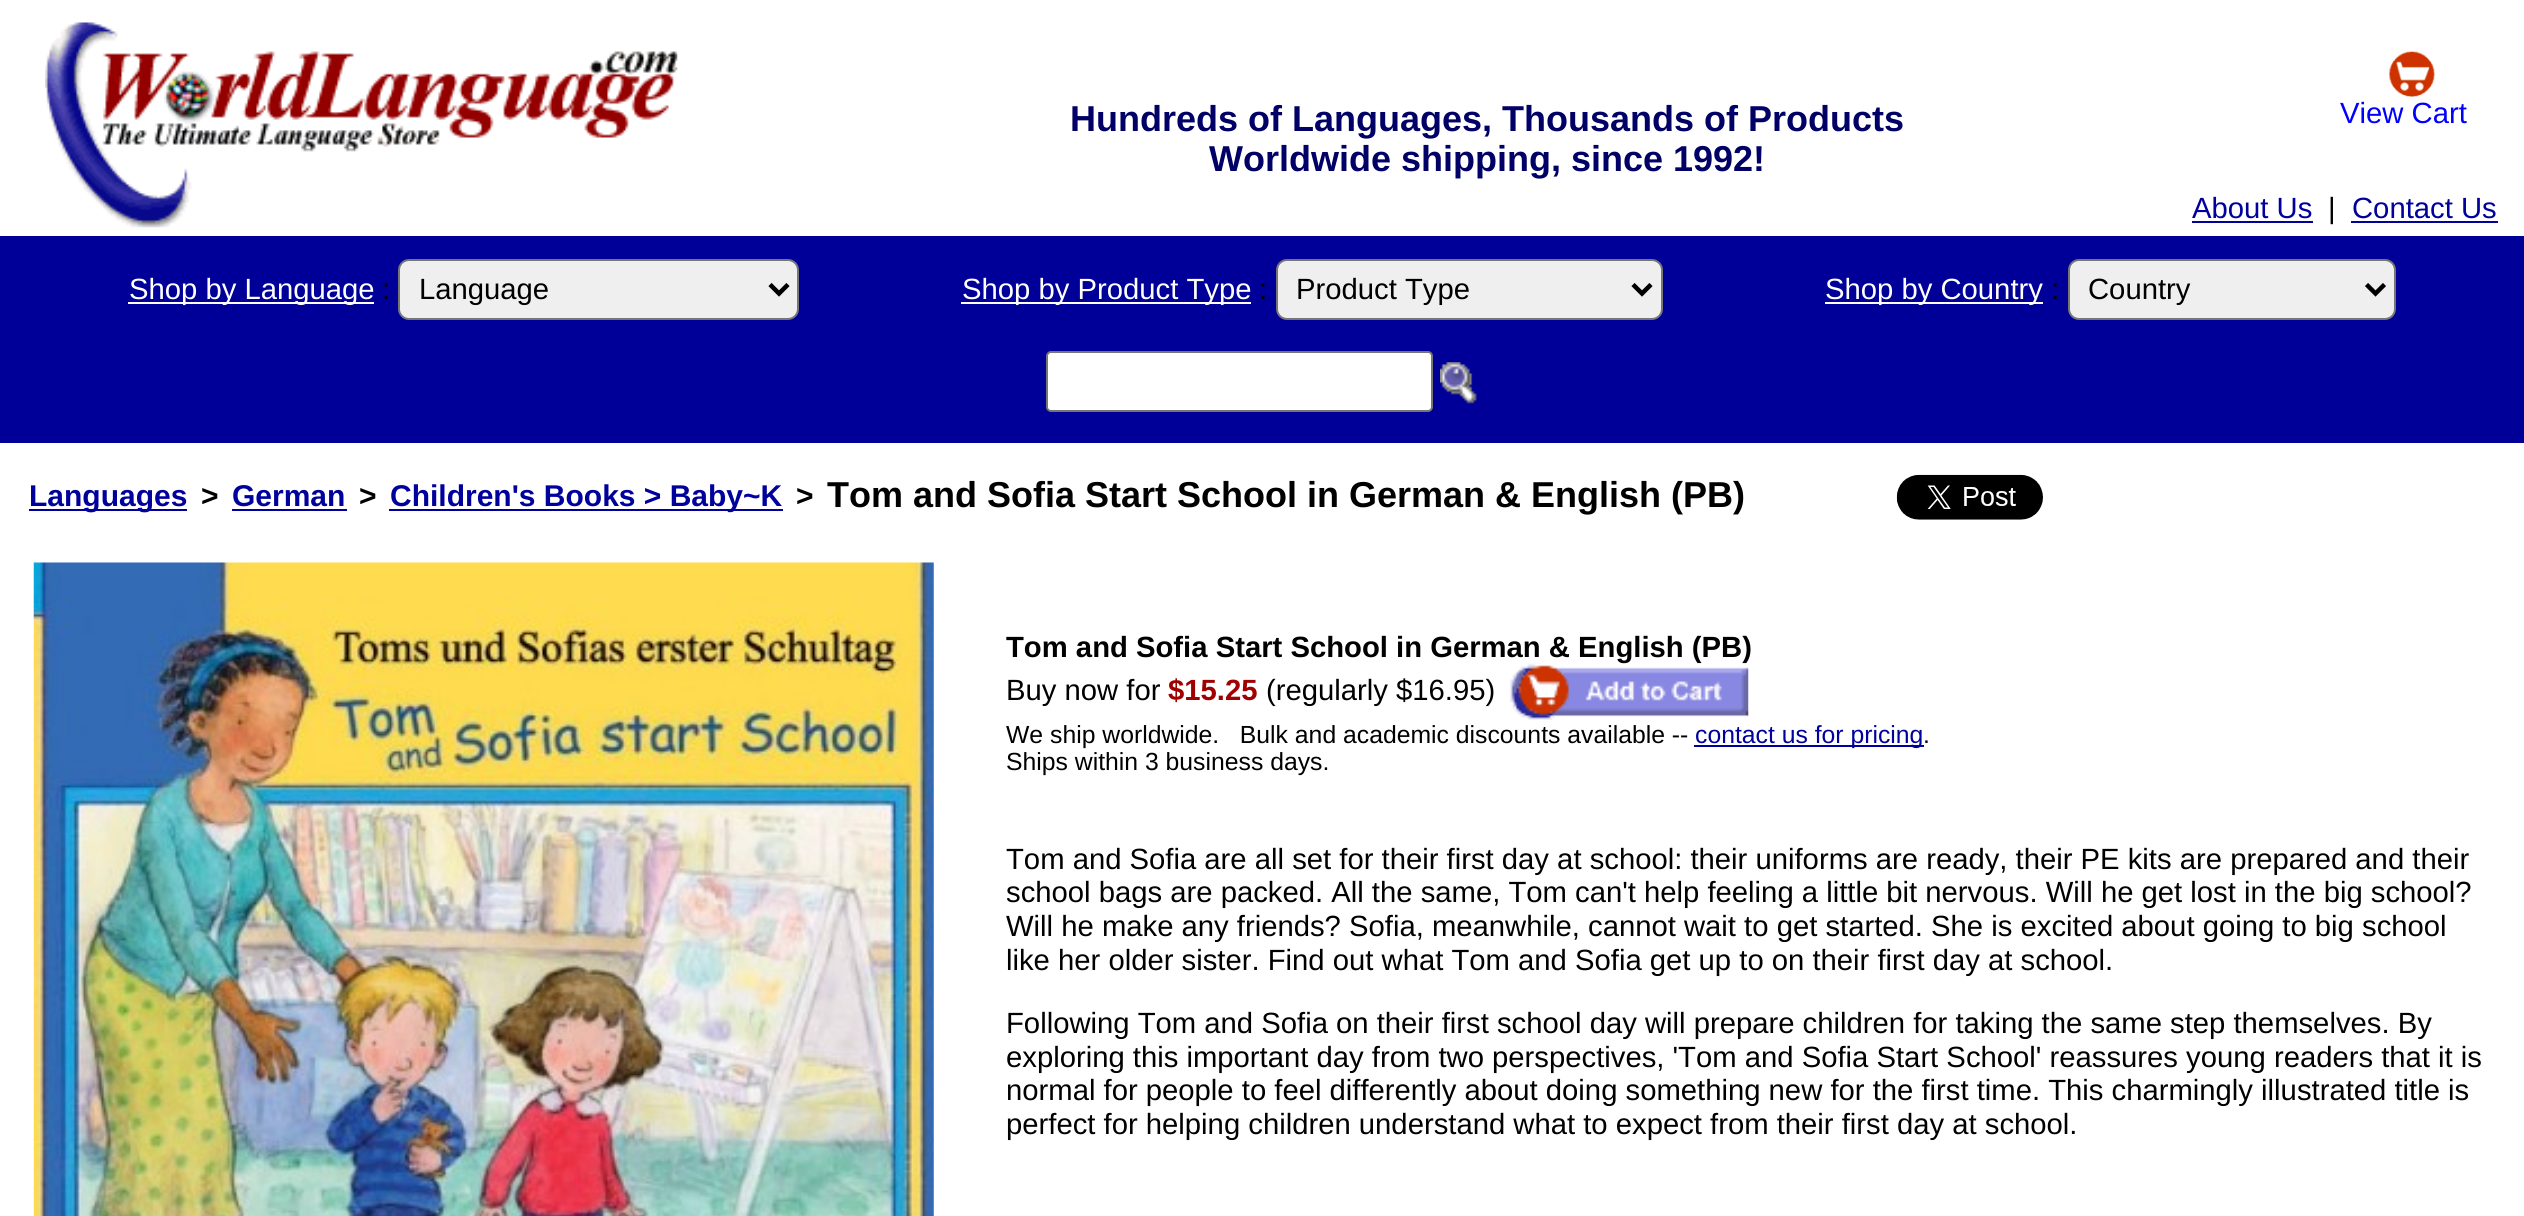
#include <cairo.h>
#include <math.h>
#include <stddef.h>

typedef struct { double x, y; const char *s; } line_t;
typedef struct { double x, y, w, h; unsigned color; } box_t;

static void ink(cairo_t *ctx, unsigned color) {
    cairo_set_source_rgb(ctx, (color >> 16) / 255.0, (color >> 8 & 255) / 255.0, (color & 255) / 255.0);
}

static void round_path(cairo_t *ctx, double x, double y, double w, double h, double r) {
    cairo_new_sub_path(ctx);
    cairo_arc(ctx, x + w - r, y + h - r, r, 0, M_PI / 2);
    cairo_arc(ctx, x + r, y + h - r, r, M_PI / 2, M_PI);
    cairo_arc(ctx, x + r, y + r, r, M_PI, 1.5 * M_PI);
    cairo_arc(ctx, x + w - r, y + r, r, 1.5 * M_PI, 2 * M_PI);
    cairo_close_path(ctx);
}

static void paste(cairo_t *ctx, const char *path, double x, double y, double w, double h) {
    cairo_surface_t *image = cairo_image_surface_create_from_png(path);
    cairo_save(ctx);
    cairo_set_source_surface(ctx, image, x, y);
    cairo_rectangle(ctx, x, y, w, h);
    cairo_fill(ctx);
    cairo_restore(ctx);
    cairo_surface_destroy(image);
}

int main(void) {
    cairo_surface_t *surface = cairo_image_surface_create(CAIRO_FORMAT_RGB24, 2524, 1216);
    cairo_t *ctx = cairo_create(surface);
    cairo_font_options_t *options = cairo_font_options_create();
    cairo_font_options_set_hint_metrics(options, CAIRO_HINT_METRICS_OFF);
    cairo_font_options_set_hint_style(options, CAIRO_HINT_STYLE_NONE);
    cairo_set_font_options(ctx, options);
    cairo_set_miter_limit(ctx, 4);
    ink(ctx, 0xFFFFFF);
    cairo_paint(ctx);
    paste(ctx, "media/1.png", 45, 22, 633, 206);
    cairo_select_font_face(ctx, "Liberation Sans", CAIRO_FONT_SLANT_NORMAL, CAIRO_FONT_WEIGHT_BOLD);
    cairo_set_font_size(ctx, 36);
    ink(ctx, 0x000066);
    cairo_move_to(ctx, 1070, 131);
    cairo_show_text(ctx, "Hundreds of Languages, Thousands of Products");
    cairo_move_to(ctx, 1209, 171);
    cairo_show_text(ctx, "Worldwide shipping, since 1992!");
    paste(ctx, "media/2.png", 2389, 51, 46, 46);
    cairo_select_font_face(ctx, "Liberation Sans", CAIRO_FONT_SLANT_NORMAL, CAIRO_FONT_WEIGHT_NORMAL);
    cairo_set_font_size(ctx, 29.25);
    ink(ctx, 0x0000FF);
    cairo_move_to(ctx, 2340, 123);
    cairo_show_text(ctx, "View Cart");
    ink(ctx, 0x00009C);
    cairo_move_to(ctx, 2192, 218);
    cairo_show_text(ctx, "About Us");
    cairo_rectangle(ctx, 2192, 221, 121, 2);
    cairo_fill(ctx);
    ink(ctx, 0x000000);
    cairo_move_to(ctx, 2328, 218);
    cairo_show_text(ctx, "|");
    ink(ctx, 0x00009C);
    cairo_move_to(ctx, 2352, 218);
    cairo_show_text(ctx, "Contact Us");
    {
        static const box_t items[] = {
            {2351, 221, 147, 2, 0x00009C},
            {0, 236, 2524, 207, 0x000099},
            {128, 302, 246, 2, 0xFFFFFF},
        };
        for (size_t i = 0; i < sizeof items / sizeof *items; i++) {
            ink(ctx, items[i].color);
            cairo_rectangle(ctx, items[i].x, items[i].y, items[i].w, items[i].h);
            cairo_fill(ctx);
        }
    }
    cairo_move_to(ctx, 129, 299);
    cairo_show_text(ctx, "Shop by Language");
    ink(ctx, 0x000000);
    cairo_move_to(ctx, 382, 299);
    cairo_show_text(ctx, ":");
    ink(ctx, 0xEFEFEF);
    round_path(ctx, 399, 260, 399, 59, 10);
    cairo_fill_preserve(ctx);
    ink(ctx, 0x767676);
    cairo_stroke(ctx);
    cairo_new_path(ctx);
    cairo_move_to(ctx, 770, 284.5);
    cairo_line_to(ctx, 779, 293.5);
    cairo_line_to(ctx, 788, 284.5);
    ink(ctx, 0x000000);
    cairo_set_line_width(ctx, 4.5);
    cairo_stroke(ctx);
    cairo_move_to(ctx, 419, 299);
    cairo_show_text(ctx, "Language");
    ink(ctx, 0xFFFFFF);
    cairo_rectangle(ctx, 961, 302, 290, 2);
    cairo_fill(ctx);
    cairo_move_to(ctx, 962, 299);
    cairo_show_text(ctx, "Shop by Product Type");
    ink(ctx, 0x000000);
    cairo_move_to(ctx, 1259, 299);
    cairo_show_text(ctx, ":");
    ink(ctx, 0xEFEFEF);
    round_path(ctx, 1277, 260, 385, 59, 10);
    cairo_fill_preserve(ctx);
    ink(ctx, 0x767676);
    cairo_set_line_width(ctx, 2);
    cairo_stroke(ctx);
    cairo_new_path(ctx);
    cairo_move_to(ctx, 1633, 284.5);
    cairo_line_to(ctx, 1642, 293.5);
    cairo_line_to(ctx, 1651, 284.5);
    ink(ctx, 0x000000);
    cairo_set_line_width(ctx, 4.5);
    cairo_stroke(ctx);
    cairo_move_to(ctx, 1296, 299);
    cairo_show_text(ctx, "Product Type");
    ink(ctx, 0xFFFFFF);
    cairo_rectangle(ctx, 1825, 302, 218, 2);
    cairo_fill(ctx);
    cairo_move_to(ctx, 1825, 299);
    cairo_show_text(ctx, "Shop by Country");
    ink(ctx, 0x000000);
    cairo_move_to(ctx, 2051, 299);
    cairo_show_text(ctx, ":");
    ink(ctx, 0xEFEFEF);
    round_path(ctx, 2069, 260, 326, 59, 10);
    cairo_fill_preserve(ctx);
    ink(ctx, 0x767676);
    cairo_set_line_width(ctx, 2);
    cairo_stroke(ctx);
    cairo_new_path(ctx);
    cairo_move_to(ctx, 2366.5, 284.5);
    cairo_line_to(ctx, 2375.5, 293.5);
    cairo_line_to(ctx, 2384.5, 284.5);
    ink(ctx, 0x000000);
    cairo_set_line_width(ctx, 4.5);
    cairo_stroke(ctx);
    cairo_move_to(ctx, 2088, 299);
    cairo_show_text(ctx, "Country");
    ink(ctx, 0xFFFFFF);
    round_path(ctx, 1047, 352, 385, 59, 4);
    cairo_fill_preserve(ctx);
    ink(ctx, 0x767676);
    cairo_set_line_width(ctx, 2);
    cairo_stroke(ctx);
    paste(ctx, "media/3.png", 1440, 362, 37, 42);
    ink(ctx, 0x00009C);
    cairo_rectangle(ctx, 29, 509, 158, 2);
    cairo_fill(ctx);
    cairo_select_font_face(ctx, "Liberation Sans", CAIRO_FONT_SLANT_NORMAL, CAIRO_FONT_WEIGHT_BOLD);
    cairo_set_font_size(ctx, 30);
    cairo_move_to(ctx, 29, 506);
    cairo_show_text(ctx, "Languages");
    ink(ctx, 0x000000);
    cairo_move_to(ctx, 201, 506);
    cairo_show_text(ctx, ">");
    ink(ctx, 0x00009C);
    cairo_move_to(ctx, 232, 506);
    cairo_show_text(ctx, "German");
    cairo_rectangle(ctx, 232, 509, 115, 2);
    cairo_fill(ctx);
    ink(ctx, 0x000000);
    cairo_move_to(ctx, 359, 506);
    cairo_show_text(ctx, ">");
    ink(ctx, 0x00009C);
    cairo_rectangle(ctx, 389, 509, 394, 2);
    cairo_fill(ctx);
    cairo_move_to(ctx, 390, 506);
    cairo_show_text(ctx, "Children's Books > Baby~K");
    ink(ctx, 0x000000);
    cairo_move_to(ctx, 796, 506);
    cairo_show_text(ctx, ">");
    cairo_set_font_size(ctx, 36);
    cairo_move_to(ctx, 827, 507);
    cairo_show_text(ctx, "Tom and Sofia Start School in German & English (PB)");
    paste(ctx, "media/4.png", 1896, 474, 147, 46);
    paste(ctx, "media/5.png", 33, 562, 901, 654);
    cairo_set_font_size(ctx, 29.25);
    cairo_move_to(ctx, 1006, 657);
    cairo_show_text(ctx, "Tom and Sofia Start School in German & English (PB)");
    cairo_select_font_face(ctx, "Liberation Sans", CAIRO_FONT_SLANT_NORMAL, CAIRO_FONT_WEIGHT_NORMAL);
    cairo_move_to(ctx, 1006, 700);
    cairo_show_text(ctx, "Buy now for");
    cairo_select_font_face(ctx, "Liberation Sans", CAIRO_FONT_SLANT_NORMAL, CAIRO_FONT_WEIGHT_BOLD);
    ink(ctx, 0xA00000);
    cairo_move_to(ctx, 1168, 700);
    cairo_show_text(ctx, "$15.25");
    cairo_select_font_face(ctx, "Liberation Sans", CAIRO_FONT_SLANT_NORMAL, CAIRO_FONT_WEIGHT_NORMAL);
    ink(ctx, 0x000000);
    cairo_move_to(ctx, 1266, 700);
    cairo_show_text(ctx, "(regularly $16.95)");
    paste(ctx, "media/6.png", 1509, 663, 240, 57);
    cairo_set_font_size(ctx, 24.75);
    cairo_move_to(ctx, 1006, 743);
    cairo_show_text(ctx, "We ship worldwide.   Bulk and academic discounts available --");
    ink(ctx, 0x00009C);
    cairo_rectangle(ctx, 1694, 745, 230, 2);
    cairo_fill(ctx);
    cairo_move_to(ctx, 1695, 743);
    cairo_show_text(ctx, "contact us for pricing");
    ink(ctx, 0x000000);
    cairo_move_to(ctx, 1923, 743);
    cairo_show_text(ctx, ".");
    cairo_move_to(ctx, 1006, 770);
    cairo_show_text(ctx, "Ships within 3 business days.");
    cairo_set_font_size(ctx, 29.25);
    {
        static const line_t items[] = {
            {1006, 869, "Tom and Sofia are all set for their first day at school: their uniforms are ready, their PE kits are prepared and their"},
            {1006, 902, "school bags are packed. All the same, Tom can't help feeling a little bit nervous. Will he get lost in the big school?"},
            {1006, 936, "Will he make any friends? Sofia, meanwhile, cannot wait to get started. She is excited about going to big school"},
            {1006, 970, "like her older sister. Find out what Tom and Sofia get up to on their first day at school."},
            {1006, 1033, "Following Tom and Sofia on their first school day will prepare children for taking the same step themselves. By"},
            {1006, 1067, "exploring this important day from two perspectives, 'Tom and Sofia Start School' reassures young readers that it is"},
            {1006, 1100, "normal for people to feel differently about doing something new for the first time. This charmingly illustrated title is"},
            {1006, 1134, "perfect for helping children understand what to expect from their first day at school."},
        };
        for (size_t i = 0; i < sizeof items / sizeof *items; i++) {
            cairo_move_to(ctx, items[i].x, items[i].y);
            cairo_show_text(ctx, items[i].s);
        }
    }
    cairo_surface_write_to_png(surface, "image.png");
    cairo_font_options_destroy(options);
    cairo_destroy(ctx);
    cairo_surface_destroy(surface);
    return 0;
}
